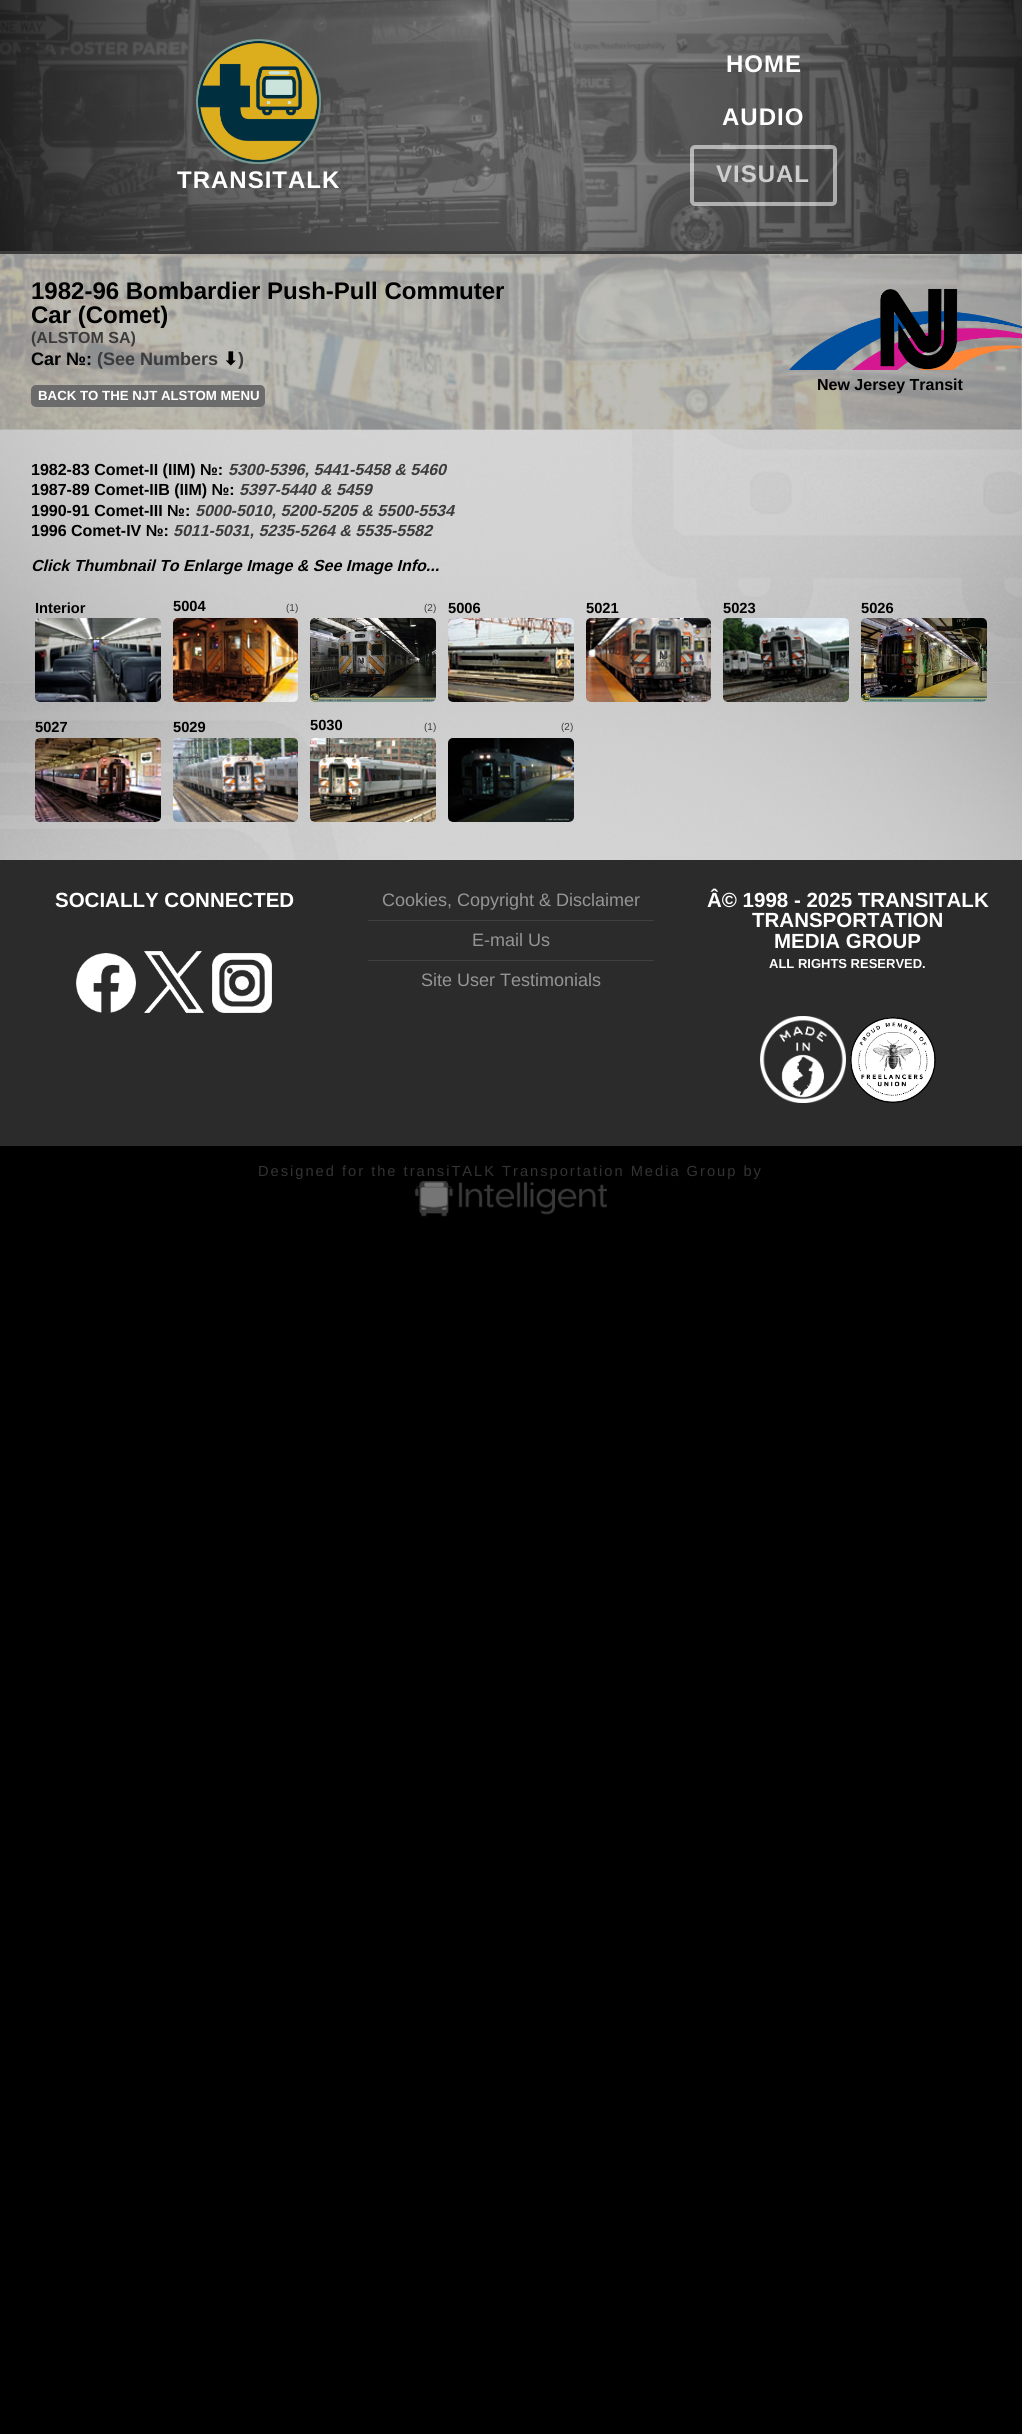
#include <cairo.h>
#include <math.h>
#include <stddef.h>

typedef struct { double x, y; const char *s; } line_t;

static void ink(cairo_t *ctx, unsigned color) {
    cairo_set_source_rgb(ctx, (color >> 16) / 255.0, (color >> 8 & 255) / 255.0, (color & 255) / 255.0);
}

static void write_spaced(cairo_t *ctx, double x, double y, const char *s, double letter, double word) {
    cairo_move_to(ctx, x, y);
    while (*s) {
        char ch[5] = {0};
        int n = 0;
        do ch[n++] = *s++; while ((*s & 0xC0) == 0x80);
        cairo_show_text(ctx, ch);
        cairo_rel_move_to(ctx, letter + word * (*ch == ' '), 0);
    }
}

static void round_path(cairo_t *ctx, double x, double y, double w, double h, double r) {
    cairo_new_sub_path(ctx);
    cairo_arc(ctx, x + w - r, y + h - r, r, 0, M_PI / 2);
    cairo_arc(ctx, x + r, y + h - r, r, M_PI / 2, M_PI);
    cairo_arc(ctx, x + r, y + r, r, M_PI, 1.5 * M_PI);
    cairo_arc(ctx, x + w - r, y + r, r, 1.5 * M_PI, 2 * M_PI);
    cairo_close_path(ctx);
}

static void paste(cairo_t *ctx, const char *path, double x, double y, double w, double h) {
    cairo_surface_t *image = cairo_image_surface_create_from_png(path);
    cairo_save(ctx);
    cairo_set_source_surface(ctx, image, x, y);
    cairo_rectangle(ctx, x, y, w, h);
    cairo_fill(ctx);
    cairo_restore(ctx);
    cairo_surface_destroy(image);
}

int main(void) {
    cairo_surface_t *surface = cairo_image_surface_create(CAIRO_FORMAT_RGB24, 1022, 2434);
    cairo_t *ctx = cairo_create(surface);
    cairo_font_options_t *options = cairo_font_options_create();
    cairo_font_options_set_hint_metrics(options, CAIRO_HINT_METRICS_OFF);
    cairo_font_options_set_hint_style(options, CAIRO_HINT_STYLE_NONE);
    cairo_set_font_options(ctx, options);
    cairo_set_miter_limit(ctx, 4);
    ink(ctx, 0x000000);
    cairo_paint(ctx);
    paste(ctx, "media/1.png", 0, 0, 1022, 251);
    ink(ctx, 0x3B3B3B);
    cairo_rectangle(ctx, 0, 251, 1022, 3);
    cairo_fill(ctx);
    paste(ctx, "media/2.png", 196, 39, 125, 125);
    cairo_select_font_face(ctx, "Arimo", CAIRO_FONT_SLANT_NORMAL, CAIRO_FONT_WEIGHT_BOLD);
    cairo_set_font_size(ctx, 24);
    ink(ctx, 0xFFFFFF);
    {
        static const line_t items[] = {
            {177, 188, "TRANSITALK"},
            {726, 72, "HOME"},
            {722, 125, "AUDIO"},
        };
        for (size_t i = 0; i < sizeof items / sizeof *items; i++) {
            write_spaced(ctx, items[i].x, items[i].y, items[i].s, 1, 0);
        }
    }
    round_path(ctx, 692, 147, 143, 57, 3);
    cairo_set_source_rgba(ctx, 1, 1, 1, 0.56);
    cairo_set_line_width(ctx, 4);
    cairo_stroke(ctx);
    ink(ctx, 0xCECECE);
    write_spaced(ctx, 716, 182, "VISUAL", 1, 0);
    ink(ctx, 0xFAFAFA);
    cairo_rectangle(ctx, 0, 254, 1022, 176);
    cairo_fill(ctx);
    paste(ctx, "media/3.png", 0, 254, 1022, 176);
    ink(ctx, 0x000000);
    cairo_move_to(ctx, 31, 299);
    cairo_show_text(ctx, "1982-96 Bombardier Push-Pull Commuter");
    cairo_move_to(ctx, 31, 323);
    cairo_show_text(ctx, "Car (Comet)");
    cairo_set_font_size(ctx, 16);
    ink(ctx, 0x3B3B3B);
    cairo_move_to(ctx, 31, 343);
    cairo_show_text(ctx, "(ALSTOM SA)");
    cairo_set_font_size(ctx, 18);
    ink(ctx, 0x000000);
    cairo_move_to(ctx, 31, 365);
    cairo_show_text(ctx, "Car №:");
    ink(ctx, 0x3B3B3B);
    cairo_move_to(ctx, 97, 365);
    cairo_show_text(ctx, "(See Numbers");
    cairo_select_font_face(ctx, "DejaVu Sans", CAIRO_FONT_SLANT_NORMAL, CAIRO_FONT_WEIGHT_BOLD);
    ink(ctx, 0x000000);
    cairo_move_to(ctx, 223, 365);
    cairo_show_text(ctx, "⬇");
    cairo_select_font_face(ctx, "Arimo", CAIRO_FONT_SLANT_NORMAL, CAIRO_FONT_WEIGHT_BOLD);
    ink(ctx, 0x3B3B3B);
    cairo_move_to(ctx, 238, 365);
    cairo_show_text(ctx, ")");
    ink(ctx, 0x6B6B6B);
    round_path(ctx, 31, 385, 234, 22, 5);
    cairo_fill(ctx);
    cairo_select_font_face(ctx, "Liberation Sans", CAIRO_FONT_SLANT_NORMAL, CAIRO_FONT_WEIGHT_BOLD);
    cairo_set_font_size(ctx, 13.25);
    ink(ctx, 0xFFFFFF);
    cairo_move_to(ctx, 38, 400);
    cairo_show_text(ctx, "BACK TO THE NJT ALSTOM MENU");
    paste(ctx, "media/4.png", 789, 288, 233, 82);
    cairo_select_font_face(ctx, "Arimo", CAIRO_FONT_SLANT_NORMAL, CAIRO_FONT_WEIGHT_BOLD);
    cairo_set_font_size(ctx, 16);
    ink(ctx, 0x000000);
    cairo_move_to(ctx, 817, 390);
    cairo_show_text(ctx, "New Jersey Transit");
    paste(ctx, "media/5.png", 0, 430, 1022, 430);
    cairo_move_to(ctx, 31, 475);
    cairo_show_text(ctx, "1982-83 Comet-II (IIM) №:");
    cairo_select_font_face(ctx, "Arimo", CAIRO_FONT_SLANT_ITALIC, CAIRO_FONT_WEIGHT_BOLD);
    ink(ctx, 0x3B3B3B);
    cairo_move_to(ctx, 228, 475);
    cairo_show_text(ctx, "5300-5396, 5441-5458 & 5460");
    cairo_select_font_face(ctx, "Arimo", CAIRO_FONT_SLANT_NORMAL, CAIRO_FONT_WEIGHT_BOLD);
    ink(ctx, 0x000000);
    cairo_move_to(ctx, 31, 495);
    cairo_show_text(ctx, "1987-89 Comet-IIB (IIM) №:");
    cairo_select_font_face(ctx, "Arimo", CAIRO_FONT_SLANT_ITALIC, CAIRO_FONT_WEIGHT_BOLD);
    ink(ctx, 0x3B3B3B);
    cairo_move_to(ctx, 239, 495);
    cairo_show_text(ctx, "5397-5440 & 5459");
    cairo_select_font_face(ctx, "Arimo", CAIRO_FONT_SLANT_NORMAL, CAIRO_FONT_WEIGHT_BOLD);
    ink(ctx, 0x000000);
    cairo_move_to(ctx, 31, 516);
    cairo_show_text(ctx, "1990-91 Comet-III №:");
    cairo_select_font_face(ctx, "Arimo", CAIRO_FONT_SLANT_ITALIC, CAIRO_FONT_WEIGHT_BOLD);
    ink(ctx, 0x3B3B3B);
    cairo_move_to(ctx, 195, 516);
    cairo_show_text(ctx, "5000-5010, 5200-5205 & 5500-5534");
    cairo_select_font_face(ctx, "Arimo", CAIRO_FONT_SLANT_NORMAL, CAIRO_FONT_WEIGHT_BOLD);
    ink(ctx, 0x000000);
    cairo_move_to(ctx, 31, 536);
    cairo_show_text(ctx, "1996 Comet-IV №:");
    cairo_select_font_face(ctx, "Arimo", CAIRO_FONT_SLANT_ITALIC, CAIRO_FONT_WEIGHT_BOLD);
    ink(ctx, 0x3B3B3B);
    cairo_move_to(ctx, 173, 536);
    cairo_show_text(ctx, "5011-5031, 5235-5264 & 5535-5582");
    ink(ctx, 0x000000);
    cairo_move_to(ctx, 31, 571);
    cairo_show_text(ctx, "Click Thumbnail To Enlarge Image & See Image Info...");
    cairo_select_font_face(ctx, "Arimo", CAIRO_FONT_SLANT_NORMAL, CAIRO_FONT_WEIGHT_BOLD);
    cairo_set_font_size(ctx, 14.65);
    cairo_move_to(ctx, 35, 613);
    cairo_show_text(ctx, "Interior");
    paste(ctx, "media/6.png", 35, 618, 126, 84);
    cairo_move_to(ctx, 173, 611);
    cairo_show_text(ctx, "5004");
    cairo_select_font_face(ctx, "Arimo", CAIRO_FONT_SLANT_NORMAL, CAIRO_FONT_WEIGHT_NORMAL);
    cairo_set_font_size(ctx, 10);
    ink(ctx, 0x3B3B3B);
    cairo_move_to(ctx, 286, 611);
    cairo_show_text(ctx, "(1)");
    paste(ctx, "media/7.png", 173, 618, 125, 84);
    cairo_move_to(ctx, 424, 611);
    cairo_show_text(ctx, "(2)");
    paste(ctx, "media/8.png", 310, 618, 126, 84);
    cairo_select_font_face(ctx, "Arimo", CAIRO_FONT_SLANT_NORMAL, CAIRO_FONT_WEIGHT_BOLD);
    cairo_set_font_size(ctx, 14.65);
    ink(ctx, 0x000000);
    cairo_move_to(ctx, 448, 613);
    cairo_show_text(ctx, "5006");
    paste(ctx, "media/9.png", 448, 618, 126, 84);
    cairo_move_to(ctx, 586, 613);
    cairo_show_text(ctx, "5021");
    paste(ctx, "media/10.png", 586, 618, 125, 84);
    cairo_move_to(ctx, 723, 613);
    cairo_show_text(ctx, "5023");
    paste(ctx, "media/11.png", 723, 618, 126, 84);
    cairo_move_to(ctx, 861, 613);
    cairo_show_text(ctx, "5026");
    paste(ctx, "media/12.png", 861, 618, 126, 84);
    cairo_move_to(ctx, 35, 732);
    cairo_show_text(ctx, "5027");
    paste(ctx, "media/13.png", 35, 738, 126, 84);
    cairo_move_to(ctx, 173, 732);
    cairo_show_text(ctx, "5029");
    paste(ctx, "media/14.png", 173, 738, 125, 84);
    cairo_move_to(ctx, 310, 730);
    cairo_show_text(ctx, "5030");
    cairo_select_font_face(ctx, "Arimo", CAIRO_FONT_SLANT_NORMAL, CAIRO_FONT_WEIGHT_NORMAL);
    cairo_set_font_size(ctx, 10);
    ink(ctx, 0x3B3B3B);
    cairo_move_to(ctx, 424, 730);
    cairo_show_text(ctx, "(1)");
    paste(ctx, "media/15.png", 310, 738, 126, 84);
    cairo_move_to(ctx, 561, 730);
    cairo_show_text(ctx, "(2)");
    paste(ctx, "media/16.png", 448, 738, 126, 84);
    ink(ctx, 0x2B2B2B);
    cairo_rectangle(ctx, 0, 860, 1022, 286);
    cairo_fill(ctx);
    cairo_select_font_face(ctx, "Arimo", CAIRO_FONT_SLANT_NORMAL, CAIRO_FONT_WEIGHT_BOLD);
    cairo_set_font_size(ctx, 20.5);
    ink(ctx, 0xFFFFFF);
    cairo_move_to(ctx, 55, 907);
    cairo_show_text(ctx, "SOCIALLY CONNECTED");
    paste(ctx, "media/17.png", 76, 953, 60, 60);
    paste(ctx, "media/18.png", 144, 951, 60, 62);
    paste(ctx, "media/19.png", 212, 953, 60, 60);
    cairo_select_font_face(ctx, "Arimo", CAIRO_FONT_SLANT_NORMAL, CAIRO_FONT_WEIGHT_NORMAL);
    cairo_set_font_size(ctx, 18);
    ink(ctx, 0x959595);
    cairo_move_to(ctx, 382, 906);
    cairo_show_text(ctx, "Cookies, Copyright & Disclaimer");
    ink(ctx, 0x404040);
    cairo_rectangle(ctx, 368, 920, 286, 1);
    cairo_fill(ctx);
    ink(ctx, 0x959595);
    cairo_move_to(ctx, 472, 946);
    cairo_show_text(ctx, "E-mail Us");
    ink(ctx, 0x404040);
    cairo_rectangle(ctx, 368, 960, 286, 1);
    cairo_fill(ctx);
    ink(ctx, 0x959595);
    cairo_move_to(ctx, 421, 986);
    cairo_show_text(ctx, "Site User Testimonials");
    cairo_select_font_face(ctx, "Arimo", CAIRO_FONT_SLANT_NORMAL, CAIRO_FONT_WEIGHT_BOLD);
    cairo_set_font_size(ctx, 20.5);
    ink(ctx, 0xFFFFFF);
    {
        static const line_t items[] = {
            {707, 907, "Â© 1998 - 2025 TRANSITALK"},
            {752, 927, "TRANSPORTATION"},
            {774, 948, "MEDIA GROUP"},
        };
        for (size_t i = 0; i < sizeof items / sizeof *items; i++) {
            cairo_move_to(ctx, items[i].x, items[i].y);
            cairo_show_text(ctx, items[i].s);
        }
    }
    cairo_set_font_size(ctx, 13);
    cairo_move_to(ctx, 769, 968);
    cairo_show_text(ctx, "ALL RIGHTS RESERVED.");
    paste(ctx, "media/20.png", 760, 1016, 86, 87);
    paste(ctx, "media/21.png", 850, 1017, 86, 86);
    cairo_select_font_face(ctx, "Arimo", CAIRO_FONT_SLANT_NORMAL, CAIRO_FONT_WEIGHT_NORMAL);
    cairo_set_font_size(ctx, 14.65);
    ink(ctx, 0x333333);
    write_spaced(ctx, 258, 1176, "Designed for the transiTALK Transportation Media Group by", 2, 0);
    paste(ctx, "media/22.png", 414, 1181, 193, 36);
    cairo_surface_write_to_png(surface, "image.png");
    cairo_font_options_destroy(options);
    cairo_destroy(ctx);
    cairo_surface_destroy(surface);
    return 0;
}
